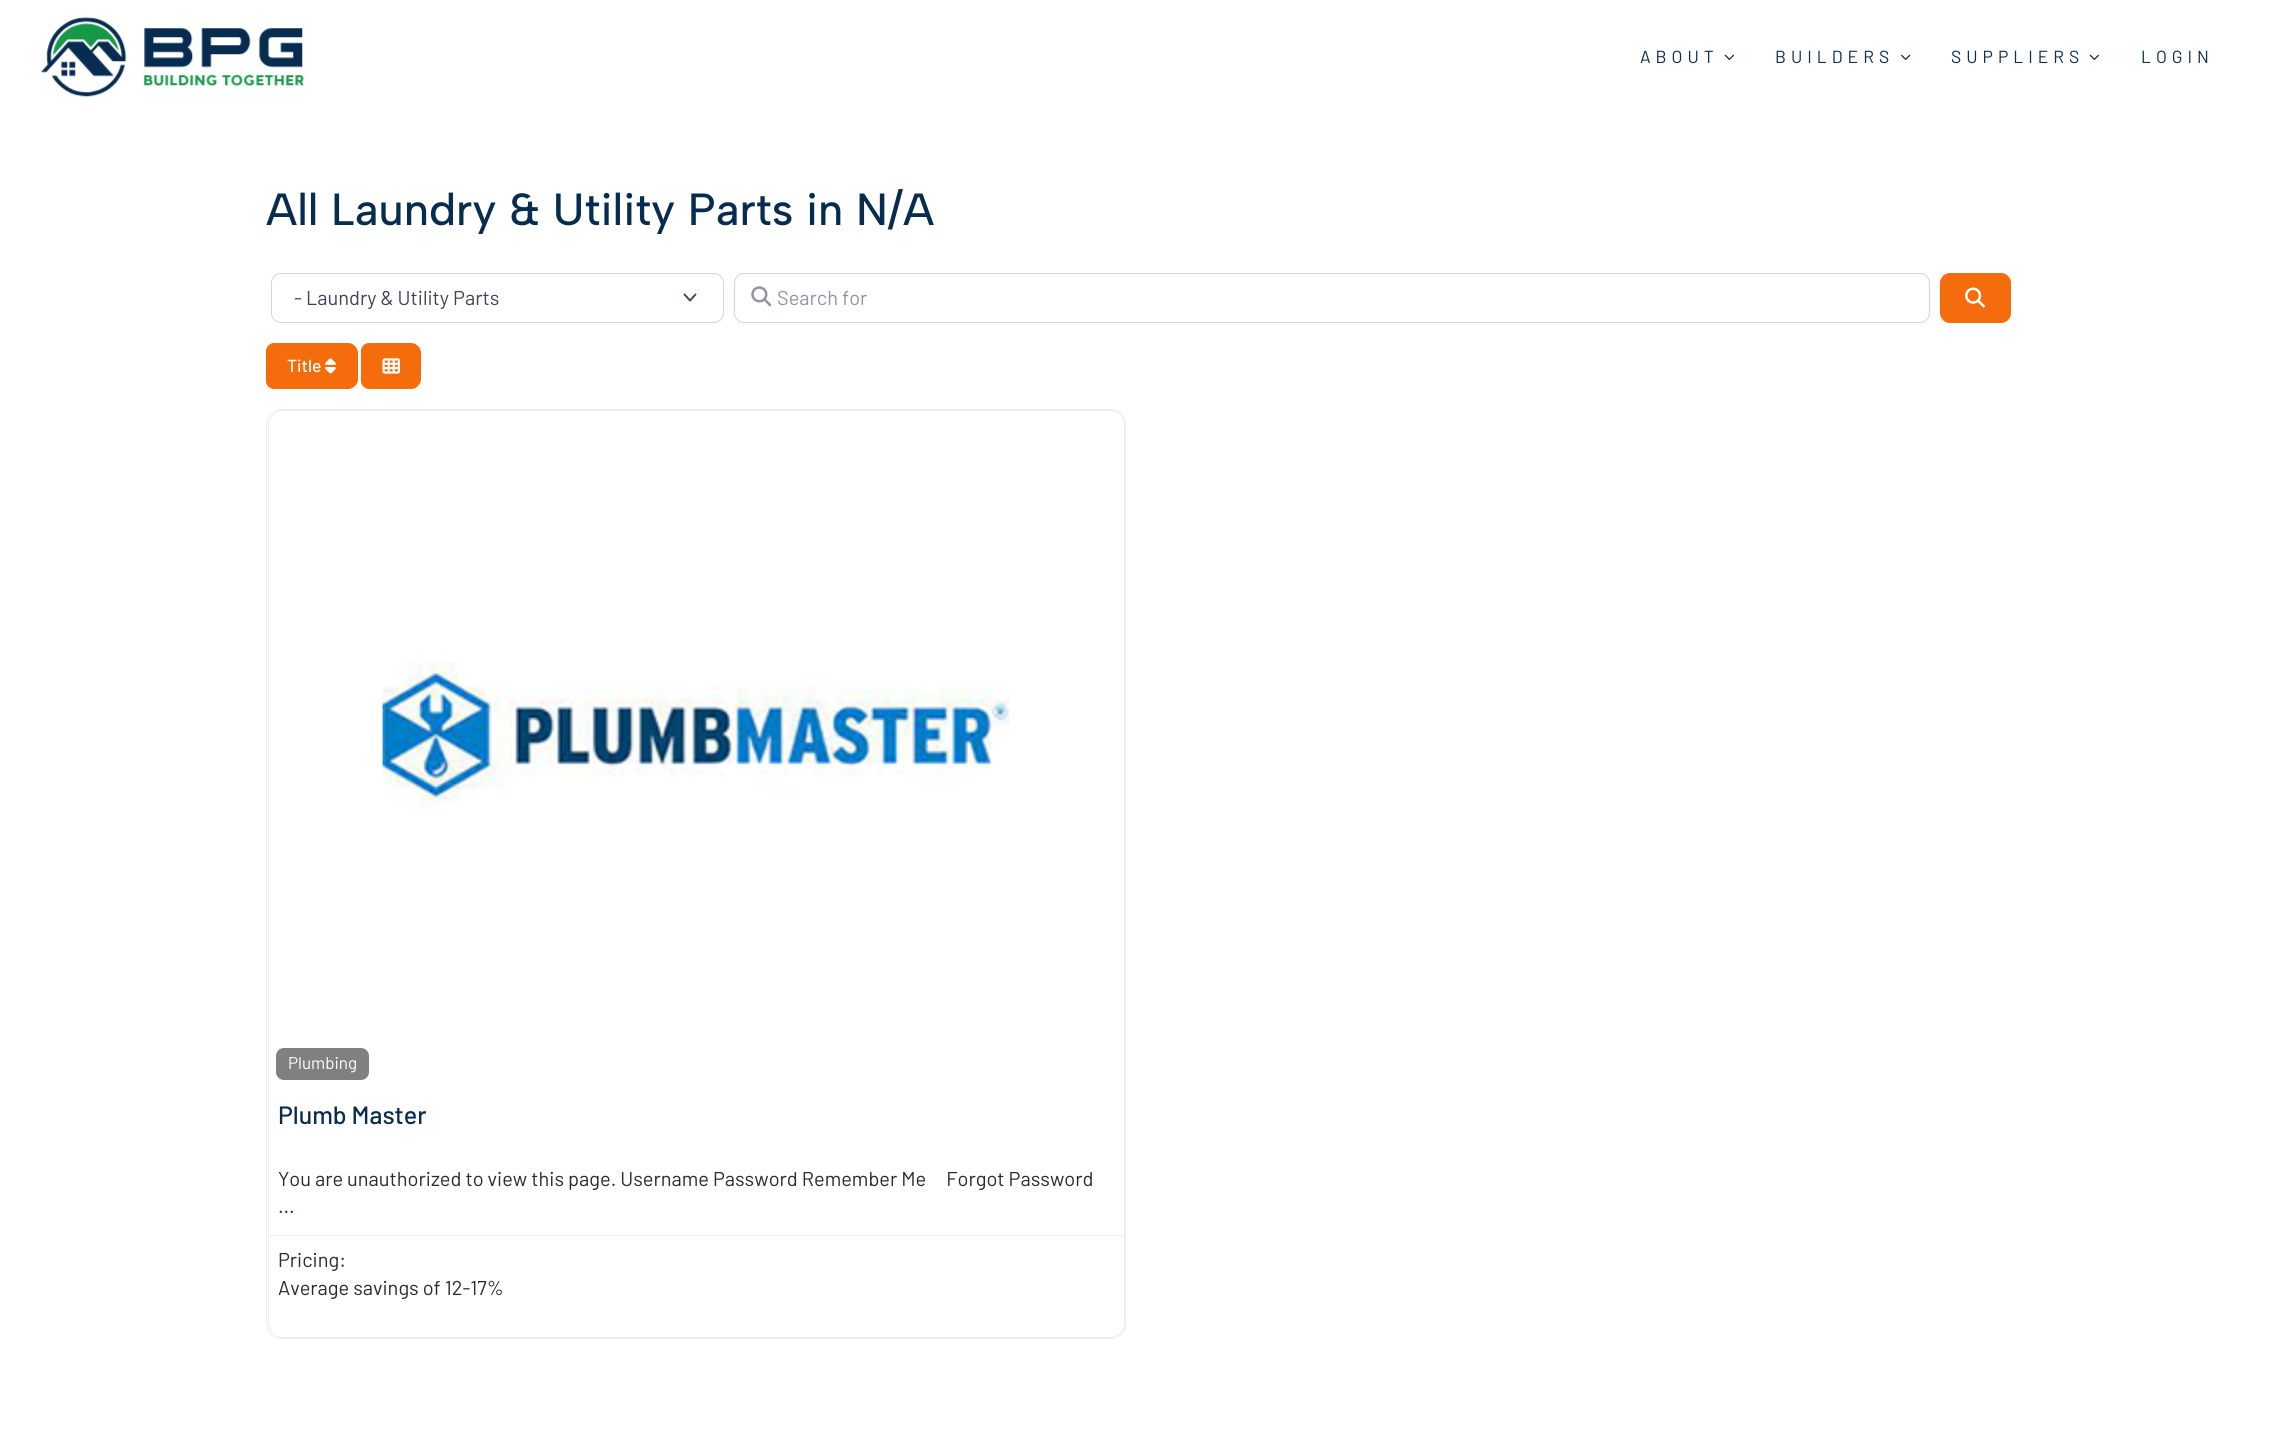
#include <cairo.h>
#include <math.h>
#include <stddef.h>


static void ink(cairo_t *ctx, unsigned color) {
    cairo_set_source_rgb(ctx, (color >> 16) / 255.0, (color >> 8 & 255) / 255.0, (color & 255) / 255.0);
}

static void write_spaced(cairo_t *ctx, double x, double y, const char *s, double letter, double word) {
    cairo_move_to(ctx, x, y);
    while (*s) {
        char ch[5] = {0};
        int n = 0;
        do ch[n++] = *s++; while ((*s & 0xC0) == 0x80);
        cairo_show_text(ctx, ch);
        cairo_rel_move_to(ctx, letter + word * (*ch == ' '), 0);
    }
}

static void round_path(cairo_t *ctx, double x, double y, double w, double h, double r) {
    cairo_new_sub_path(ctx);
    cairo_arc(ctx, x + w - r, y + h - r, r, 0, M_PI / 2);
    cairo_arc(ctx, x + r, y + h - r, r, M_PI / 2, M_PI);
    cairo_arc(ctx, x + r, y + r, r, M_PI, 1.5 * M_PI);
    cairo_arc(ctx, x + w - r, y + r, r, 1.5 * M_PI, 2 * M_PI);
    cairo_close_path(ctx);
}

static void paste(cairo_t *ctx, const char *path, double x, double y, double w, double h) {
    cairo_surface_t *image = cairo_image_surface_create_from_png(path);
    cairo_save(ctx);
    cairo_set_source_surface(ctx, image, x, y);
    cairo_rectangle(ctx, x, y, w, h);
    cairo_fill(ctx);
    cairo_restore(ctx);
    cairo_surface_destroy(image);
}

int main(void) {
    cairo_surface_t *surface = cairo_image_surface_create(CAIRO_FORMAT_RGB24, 2281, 1430);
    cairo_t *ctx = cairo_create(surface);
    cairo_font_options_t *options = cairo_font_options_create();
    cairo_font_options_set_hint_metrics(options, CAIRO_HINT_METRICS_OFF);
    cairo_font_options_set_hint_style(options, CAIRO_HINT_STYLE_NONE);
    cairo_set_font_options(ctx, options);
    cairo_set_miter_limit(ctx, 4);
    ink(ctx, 0xFFFFFF);
    cairo_paint(ctx);
    paste(ctx, "media/1.png", 41, 17, 263, 80);
    cairo_select_font_face(ctx, "Barlow", CAIRO_FONT_SLANT_NORMAL, CAIRO_FONT_WEIGHT_NORMAL);
    cairo_set_font_size(ctx, 17.5);
    ink(ctx, 0x072C50);
    write_spaced(ctx, 1640, 63, "ABOUT", 5, 0);
    paste(ctx, "media/2.png", 1724, 54, 10, 6);
    write_spaced(ctx, 1775, 63, "BUILDERS", 5, 0);
    paste(ctx, "media/3.png", 1901, 54, 10, 6);
    write_spaced(ctx, 1951, 63, "SUPPLIERS", 5, 0);
    paste(ctx, "media/2.png", 2089, 54, 10, 6);
    write_spaced(ctx, 2141, 63, "LOGIN", 5, 0);
    cairo_select_font_face(ctx, "Albert Sans Medium", CAIRO_FONT_SLANT_NORMAL, CAIRO_FONT_WEIGHT_NORMAL);
    cairo_set_font_size(ctx, 45);
    cairo_move_to(ctx, 266, 225);
    cairo_show_text(ctx, "All Laundry & Utility Parts in N/A");
    cairo_new_path(ctx);
    cairo_move_to(ctx, 684.5, 294.5);
    cairo_line_to(ctx, 690, 300.5);
    cairo_line_to(ctx, 695.5, 294.5);
    ink(ctx, 0x454056);
    cairo_set_line_width(ctx, 1.9);
    cairo_set_line_cap(ctx, CAIRO_LINE_CAP_ROUND);
    cairo_set_line_join(ctx, CAIRO_LINE_JOIN_ROUND);
    cairo_stroke(ctx);
    round_path(ctx, 271.5, 273.5, 452, 49, 9.5);
    ink(ctx, 0xD5D2DC);
    cairo_set_line_width(ctx, 1);
    cairo_set_line_cap(ctx, CAIRO_LINE_CAP_BUTT);
    cairo_set_line_join(ctx, CAIRO_LINE_JOIN_MITER);
    cairo_stroke(ctx);
    cairo_select_font_face(ctx, "Barlow", CAIRO_FONT_SLANT_NORMAL, CAIRO_FONT_WEIGHT_NORMAL);
    cairo_set_font_size(ctx, 20);
    ink(ctx, 0x454056);
    cairo_move_to(ctx, 294, 305);
    cairo_show_text(ctx, "- Laundry & Utility Parts");
    round_path(ctx, 734.5, 273.5, 1195, 49, 9.5);
    ink(ctx, 0xD5D2DC);
    cairo_stroke(ctx);
    paste(ctx, "media/4.png", 751, 286, 21, 21);
    ink(ctx, 0x9691A4);
    cairo_move_to(ctx, 777, 305);
    cairo_show_text(ctx, "Search for");
    ink(ctx, 0xF46C0B);
    round_path(ctx, 1940.5, 273.5, 70, 49, 9.5);
    cairo_fill_preserve(ctx);
    cairo_stroke(ctx);
    paste(ctx, "media/5.png", 1965, 287, 20, 21);
    cairo_new_path(ctx);
    cairo_move_to(ctx, 274, 343.5);
    cairo_line_to(ctx, 348, 343.5);
    cairo_curve_to(ctx, 353, 343.5, 357.5, 348, 357.5, 353);
    cairo_line_to(ctx, 357.5, 379);
    cairo_curve_to(ctx, 357.5, 384, 353, 388.5, 348, 388.5);
    cairo_line_to(ctx, 274, 388.5);
    cairo_curve_to(ctx, 270, 388.5, 266.5, 385, 266.5, 381);
    cairo_line_to(ctx, 266.5, 351);
    cairo_curve_to(ctx, 266.5, 347, 270, 343.5, 274, 343.5);
    cairo_close_path(ctx);
    cairo_fill_preserve(ctx);
    cairo_stroke(ctx);
    cairo_select_font_face(ctx, "Barlow Medium", CAIRO_FONT_SLANT_NORMAL, CAIRO_FONT_WEIGHT_NORMAL);
    cairo_set_font_size(ctx, 17.5);
    ink(ctx, 0xFFFFFF);
    cairo_move_to(ctx, 287, 372);
    cairo_show_text(ctx, "Title");
    paste(ctx, "media/6.png", 325, 358, 11, 16);
    ink(ctx, 0xF46C0B);
    cairo_new_path(ctx);
    cairo_move_to(ctx, 369, 343.5);
    cairo_line_to(ctx, 411, 343.5);
    cairo_curve_to(ctx, 416, 343.5, 420.5, 348, 420.5, 353);
    cairo_line_to(ctx, 420.5, 379);
    cairo_curve_to(ctx, 420.5, 384, 416, 388.5, 411, 388.5);
    cairo_line_to(ctx, 369, 388.5);
    cairo_curve_to(ctx, 365, 388.5, 361.5, 385, 361.5, 381);
    cairo_line_to(ctx, 361.5, 351);
    cairo_curve_to(ctx, 361.5, 347, 365, 343.5, 369, 343.5);
    cairo_close_path(ctx);
    cairo_fill_preserve(ctx);
    cairo_stroke(ctx);
    paste(ctx, "media/7.png", 382, 358, 18, 16);
    round_path(ctx, 266.5, 409.5, 859, 929, 14.5);
    ink(ctx, 0xEFECF3);
    cairo_stroke(ctx);
    ink(ctx, 0xFFFFFF);
    round_path(ctx, 268.5, 410.5, 856, 927, 14.5);
    cairo_fill_preserve(ctx);
    ink(ctx, 0xEFECF3);
    cairo_stroke(ctx);
    paste(ctx, "media/8.png", 381, 661, 628, 147);
    ink(ctx, 0x808080);
    round_path(ctx, 276, 1048, 93, 32, 8);
    cairo_fill(ctx);
    cairo_select_font_face(ctx, "Barlow", CAIRO_FONT_SLANT_NORMAL, CAIRO_FONT_WEIGHT_NORMAL);
    cairo_set_font_size(ctx, 17);
    ink(ctx, 0xFFFFFF);
    cairo_move_to(ctx, 288, 1069);
    cairo_show_text(ctx, "Plumbing");
    cairo_select_font_face(ctx, "Barlow Medium", CAIRO_FONT_SLANT_NORMAL, CAIRO_FONT_WEIGHT_NORMAL);
    cairo_set_font_size(ctx, 25);
    ink(ctx, 0x072C50);
    cairo_move_to(ctx, 278, 1124);
    cairo_show_text(ctx, "Plumb Master");
    cairo_select_font_face(ctx, "Barlow", CAIRO_FONT_SLANT_NORMAL, CAIRO_FONT_WEIGHT_NORMAL);
    cairo_set_font_size(ctx, 20);
    ink(ctx, 0x2A2A2A);
    cairo_move_to(ctx, 278, 1186);
    cairo_show_text(ctx, "You are unauthorized to view this page. Username Password Remember Me     Forgot Password");
    ink(ctx, 0x072C50);
    cairo_move_to(ctx, 278, 1213);
    cairo_show_text(ctx, "...");
    ink(ctx, 0xEFECF3);
    cairo_rectangle(ctx, 269, 1235, 855, 1);
    cairo_fill(ctx);
    ink(ctx, 0x2A2A2A);
    cairo_move_to(ctx, 278, 1267);
    cairo_show_text(ctx, "Pricing:");
    cairo_move_to(ctx, 278, 1295);
    cairo_show_text(ctx, "Average savings of 12-17%");
    cairo_surface_write_to_png(surface, "image.png");
    cairo_font_options_destroy(options);
    cairo_destroy(ctx);
    cairo_surface_destroy(surface);
    return 0;
}
